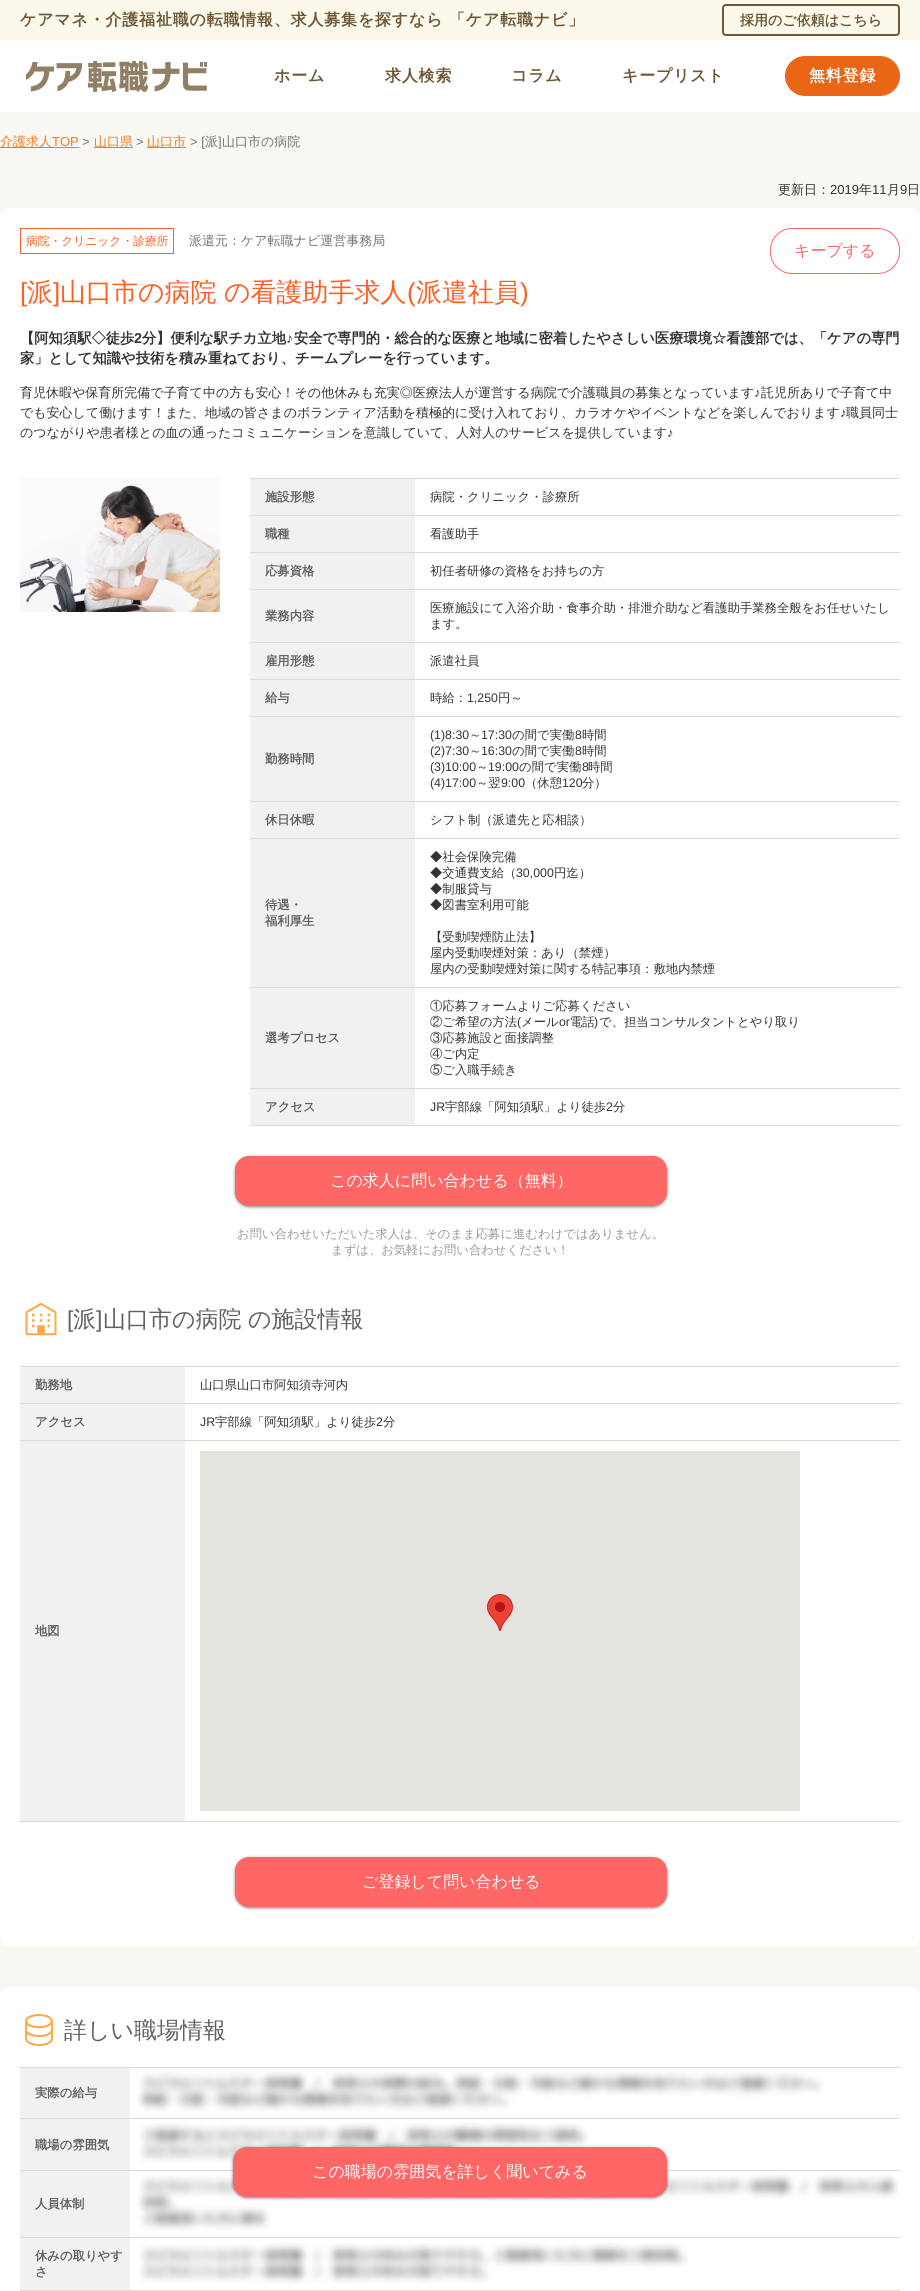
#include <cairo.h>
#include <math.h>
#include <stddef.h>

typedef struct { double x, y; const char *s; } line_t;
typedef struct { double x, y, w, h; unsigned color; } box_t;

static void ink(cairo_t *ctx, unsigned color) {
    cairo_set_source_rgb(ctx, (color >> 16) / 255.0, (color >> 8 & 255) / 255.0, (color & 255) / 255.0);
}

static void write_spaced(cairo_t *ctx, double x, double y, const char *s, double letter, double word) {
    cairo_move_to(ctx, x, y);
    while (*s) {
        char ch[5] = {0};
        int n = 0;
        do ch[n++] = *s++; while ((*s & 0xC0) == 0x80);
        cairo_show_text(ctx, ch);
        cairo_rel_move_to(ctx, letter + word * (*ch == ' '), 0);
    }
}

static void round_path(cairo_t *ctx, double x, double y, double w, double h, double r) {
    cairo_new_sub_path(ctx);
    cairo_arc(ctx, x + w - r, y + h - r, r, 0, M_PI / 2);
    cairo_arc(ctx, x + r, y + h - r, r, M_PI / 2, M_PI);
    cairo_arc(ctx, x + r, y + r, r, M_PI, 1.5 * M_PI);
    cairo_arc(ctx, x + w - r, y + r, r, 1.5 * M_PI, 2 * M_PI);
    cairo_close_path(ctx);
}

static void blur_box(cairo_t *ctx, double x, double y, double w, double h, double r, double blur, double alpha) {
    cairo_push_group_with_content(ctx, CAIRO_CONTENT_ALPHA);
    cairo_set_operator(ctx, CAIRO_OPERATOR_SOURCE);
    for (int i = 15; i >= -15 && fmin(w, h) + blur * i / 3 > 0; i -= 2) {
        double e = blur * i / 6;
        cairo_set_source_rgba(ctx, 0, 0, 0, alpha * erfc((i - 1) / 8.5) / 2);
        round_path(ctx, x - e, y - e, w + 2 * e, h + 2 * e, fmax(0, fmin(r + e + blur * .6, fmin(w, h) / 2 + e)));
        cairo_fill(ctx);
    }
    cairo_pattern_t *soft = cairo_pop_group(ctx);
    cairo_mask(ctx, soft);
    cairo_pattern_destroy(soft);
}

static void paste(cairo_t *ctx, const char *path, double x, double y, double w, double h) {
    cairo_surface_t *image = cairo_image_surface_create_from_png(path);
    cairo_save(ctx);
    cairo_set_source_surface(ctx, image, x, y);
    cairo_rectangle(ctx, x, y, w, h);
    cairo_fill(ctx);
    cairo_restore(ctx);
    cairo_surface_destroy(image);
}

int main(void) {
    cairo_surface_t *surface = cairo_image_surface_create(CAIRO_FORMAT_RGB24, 920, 2291);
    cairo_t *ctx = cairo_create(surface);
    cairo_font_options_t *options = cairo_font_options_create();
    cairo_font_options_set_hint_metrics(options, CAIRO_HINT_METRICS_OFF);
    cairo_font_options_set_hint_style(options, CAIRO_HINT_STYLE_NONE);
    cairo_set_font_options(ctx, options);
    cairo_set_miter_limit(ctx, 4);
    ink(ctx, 0xFFFFFF);
    cairo_paint(ctx);
    ink(ctx, 0xFAF9EC);
    cairo_rectangle(ctx, 0, 0, 920, 40);
    cairo_fill(ctx);
    cairo_select_font_face(ctx, "WenQuanYi Zen Hei", CAIRO_FONT_SLANT_NORMAL, CAIRO_FONT_WEIGHT_BOLD);
    cairo_set_font_size(ctx, 16);
    ink(ctx, 0x6F5735);
    write_spaced(ctx, 20, 25, "ケアマネ・介護福祉職の転職情報、求人募集を探すなら 「ケア転職ナビ」", 0.8, 0);
    round_path(ctx, 723, 5, 176, 30, 3);
    cairo_stroke(ctx);
    cairo_set_font_size(ctx, 14);
    cairo_move_to(ctx, 740, 25);
    cairo_show_text(ctx, "採用のご依頼はこちら");
    paste(ctx, "media/1.png", 26, 61, 182, 31);
    cairo_set_font_size(ctx, 16);
    {
        static const line_t items[] = {
            {274, 81, "ホーム"},
            {385, 81, "求人検索"},
            {511, 81, "コラム"},
            {622, 81, "キープリスト"},
        };
        for (size_t i = 0; i < sizeof items / sizeof *items; i++) {
            write_spaced(ctx, items[i].x, items[i].y, items[i].s, 0.8, 0);
        }
    }
    ink(ctx, 0xE96617);
    round_path(ctx, 785, 56, 115, 40, 20);
    cairo_fill(ctx);
    ink(ctx, 0xFFFFFF);
    write_spaced(ctx, 809, 81, "無料登録", 0.8, 0);
    ink(ctx, 0xF8F7F2);
    cairo_rectangle(ctx, 0, 112, 920, 1885);
    cairo_fill(ctx);
    ink(ctx, 0xEE7C1D);
    cairo_rectangle(ctx, 0, 147, 79, 1);
    cairo_fill(ctx);
    cairo_select_font_face(ctx, "WenQuanYi Zen Hei Medium", CAIRO_FONT_SLANT_NORMAL, CAIRO_FONT_WEIGHT_NORMAL);
    cairo_set_font_size(ctx, 13);
    cairo_move_to(ctx, 0, 146);
    cairo_show_text(ctx, "介護求人");
    cairo_select_font_face(ctx, "Liberation Sans", CAIRO_FONT_SLANT_NORMAL, CAIRO_FONT_WEIGHT_NORMAL);
    cairo_move_to(ctx, 52, 146);
    cairo_show_text(ctx, "TOP");
    cairo_rectangle(ctx, 94, 147, 39, 1);
    cairo_fill(ctx);
    cairo_select_font_face(ctx, "WenQuanYi Zen Hei Medium", CAIRO_FONT_SLANT_NORMAL, CAIRO_FONT_WEIGHT_NORMAL);
    cairo_move_to(ctx, 94, 146);
    cairo_show_text(ctx, "山口県");
    cairo_rectangle(ctx, 147, 147, 39, 1);
    cairo_fill(ctx);
    cairo_move_to(ctx, 147, 146);
    cairo_show_text(ctx, "山口市");
    cairo_select_font_face(ctx, "Liberation Sans", CAIRO_FONT_SLANT_NORMAL, CAIRO_FONT_WEIGHT_NORMAL);
    ink(ctx, 0x737373);
    cairo_move_to(ctx, 190, 146);
    cairo_show_text(ctx, "> [");
    cairo_select_font_face(ctx, "WenQuanYi Zen Hei Medium", CAIRO_FONT_SLANT_NORMAL, CAIRO_FONT_WEIGHT_NORMAL);
    cairo_move_to(ctx, 205, 146);
    cairo_show_text(ctx, "派 山口市の病院");
    cairo_select_font_face(ctx, "Liberation Sans", CAIRO_FONT_SLANT_NORMAL, CAIRO_FONT_WEIGHT_NORMAL);
    {
        static const line_t items[] = {
            {82, 146, ">"},
            {136, 146, ">"},
            {218, 146, "]"},
        };
        for (size_t i = 0; i < sizeof items / sizeof *items; i++) {
            cairo_move_to(ctx, items[i].x, items[i].y);
            cairo_show_text(ctx, items[i].s);
        }
    }
    cairo_select_font_face(ctx, "WenQuanYi Zen Hei Medium", CAIRO_FONT_SLANT_NORMAL, CAIRO_FONT_WEIGHT_NORMAL);
    ink(ctx, 0x333333);
    cairo_move_to(ctx, 778, 194);
    cairo_show_text(ctx, "更新日：");
    cairo_select_font_face(ctx, "Liberation Sans", CAIRO_FONT_SLANT_NORMAL, CAIRO_FONT_WEIGHT_NORMAL);
    cairo_move_to(ctx, 830, 194);
    cairo_show_text(ctx, "2019");
    cairo_select_font_face(ctx, "WenQuanYi Zen Hei Medium", CAIRO_FONT_SLANT_NORMAL, CAIRO_FONT_WEIGHT_NORMAL);
    cairo_move_to(ctx, 859, 194);
    cairo_show_text(ctx, "年");
    cairo_select_font_face(ctx, "Liberation Sans", CAIRO_FONT_SLANT_NORMAL, CAIRO_FONT_WEIGHT_NORMAL);
    cairo_move_to(ctx, 872, 194);
    cairo_show_text(ctx, "11");
    cairo_select_font_face(ctx, "WenQuanYi Zen Hei Medium", CAIRO_FONT_SLANT_NORMAL, CAIRO_FONT_WEIGHT_NORMAL);
    cairo_move_to(ctx, 887, 194);
    cairo_show_text(ctx, "月");
    cairo_select_font_face(ctx, "Liberation Sans", CAIRO_FONT_SLANT_NORMAL, CAIRO_FONT_WEIGHT_NORMAL);
    cairo_move_to(ctx, 900, 194);
    cairo_show_text(ctx, "9");
    cairo_select_font_face(ctx, "WenQuanYi Zen Hei Medium", CAIRO_FONT_SLANT_NORMAL, CAIRO_FONT_WEIGHT_NORMAL);
    cairo_move_to(ctx, 907, 194);
    cairo_show_text(ctx, "日");
    ink(ctx, 0xFFFFFF);
    round_path(ctx, 0, 208, 920, 1739, 10);
    cairo_fill(ctx);
    cairo_rectangle(ctx, 20.5, 228.5, 153, 25);
    ink(ctx, 0xFF5F25);
    cairo_set_line_width(ctx, 1);
    cairo_stroke(ctx);
    cairo_set_font_size(ctx, 11.75);
    cairo_move_to(ctx, 26, 245);
    cairo_show_text(ctx, "病院・クリニック・診療所");
    cairo_set_font_size(ctx, 13);
    ink(ctx, 0x737373);
    cairo_move_to(ctx, 189, 245);
    cairo_show_text(ctx, "派遣元：ケア転職ナビ運営事務局");
    round_path(ctx, 770.5, 228.5, 129, 45, 21.5);
    ink(ctx, 0xFF6666);
    cairo_stroke(ctx);
    cairo_set_font_size(ctx, 16);
    cairo_move_to(ctx, 794, 256);
    cairo_show_text(ctx, "キープする");
    cairo_select_font_face(ctx, "Liberation Sans", CAIRO_FONT_SLANT_NORMAL, CAIRO_FONT_WEIGHT_NORMAL);
    cairo_set_font_size(ctx, 26);
    ink(ctx, 0xFF5F25);
    cairo_move_to(ctx, 20, 301);
    cairo_show_text(ctx, "[");
    cairo_select_font_face(ctx, "WenQuanYi Zen Hei Medium", CAIRO_FONT_SLANT_NORMAL, CAIRO_FONT_WEIGHT_NORMAL);
    cairo_move_to(ctx, 27, 301);
    cairo_show_text(ctx, "派");
    cairo_select_font_face(ctx, "Liberation Sans", CAIRO_FONT_SLANT_NORMAL, CAIRO_FONT_WEIGHT_NORMAL);
    cairo_move_to(ctx, 53, 301);
    cairo_show_text(ctx, "]");
    cairo_select_font_face(ctx, "WenQuanYi Zen Hei Medium", CAIRO_FONT_SLANT_NORMAL, CAIRO_FONT_WEIGHT_NORMAL);
    cairo_move_to(ctx, 60, 301);
    cairo_show_text(ctx, "山口市の病院");
    cairo_move_to(ctx, 224, 301);
    cairo_show_text(ctx, "の看護助手求人");
    cairo_select_font_face(ctx, "Liberation Sans", CAIRO_FONT_SLANT_NORMAL, CAIRO_FONT_WEIGHT_NORMAL);
    cairo_move_to(ctx, 407, 301);
    cairo_show_text(ctx, "(");
    cairo_select_font_face(ctx, "WenQuanYi Zen Hei Medium", CAIRO_FONT_SLANT_NORMAL, CAIRO_FONT_WEIGHT_NORMAL);
    cairo_move_to(ctx, 416, 301);
    cairo_show_text(ctx, "派遣社員");
    cairo_select_font_face(ctx, "Liberation Sans", CAIRO_FONT_SLANT_NORMAL, CAIRO_FONT_WEIGHT_NORMAL);
    cairo_move_to(ctx, 520, 301);
    cairo_show_text(ctx, ")");
    cairo_select_font_face(ctx, "WenQuanYi Zen Hei", CAIRO_FONT_SLANT_NORMAL, CAIRO_FONT_WEIGHT_BOLD);
    cairo_set_font_size(ctx, 14.3);
    ink(ctx, 0x333333);
    cairo_move_to(ctx, 20, 343);
    cairo_show_text(ctx, "【阿知須駅◇徒歩");
    cairo_select_font_face(ctx, "Liberation Sans", CAIRO_FONT_SLANT_NORMAL, CAIRO_FONT_WEIGHT_BOLD);
    cairo_move_to(ctx, 134, 343);
    cairo_show_text(ctx, "2");
    cairo_select_font_face(ctx, "WenQuanYi Zen Hei", CAIRO_FONT_SLANT_NORMAL, CAIRO_FONT_WEIGHT_BOLD);
    cairo_move_to(ctx, 142, 343);
    cairo_show_text(ctx, "分】便利な駅チカ立地");
    cairo_select_font_face(ctx, "Liberation Sans", CAIRO_FONT_SLANT_NORMAL, CAIRO_FONT_WEIGHT_BOLD);
    cairo_move_to(ctx, 286, 343);
    cairo_show_text(ctx, "♪");
    cairo_select_font_face(ctx, "WenQuanYi Zen Hei", CAIRO_FONT_SLANT_NORMAL, CAIRO_FONT_WEIGHT_BOLD);
    cairo_move_to(ctx, 294, 343);
    cairo_show_text(ctx, "安全で専門的・総合的な医療と地域に密着したやさしい医療環境☆看護部では、「ケアの専門");
    cairo_move_to(ctx, 20, 363);
    cairo_show_text(ctx, "家」として知識や技術を積み重ねており、チームプレーを行っています。");
    cairo_select_font_face(ctx, "WenQuanYi Zen Hei Medium", CAIRO_FONT_SLANT_NORMAL, CAIRO_FONT_WEIGHT_NORMAL);
    cairo_set_font_size(ctx, 13);
    cairo_move_to(ctx, 20, 397);
    cairo_show_text(ctx, "育児休暇や保育所完備で子育て中の方も安心！その他休みも充実◎医療法人が運営する病院で介護職員の募集となっています");
    cairo_select_font_face(ctx, "Liberation Sans", CAIRO_FONT_SLANT_NORMAL, CAIRO_FONT_WEIGHT_NORMAL);
    cairo_move_to(ctx, 754, 397);
    cairo_show_text(ctx, "♪");
    cairo_select_font_face(ctx, "WenQuanYi Zen Hei Medium", CAIRO_FONT_SLANT_NORMAL, CAIRO_FONT_WEIGHT_NORMAL);
    cairo_move_to(ctx, 761, 397);
    cairo_show_text(ctx, "託児所ありで子育て中");
    cairo_move_to(ctx, 20, 417);
    cairo_show_text(ctx, "でも安心して働けます！また、地域の皆さまのボランティア活動を積極的に受け入れており、カラオケやイベントなどを楽しんでおります");
    cairo_select_font_face(ctx, "Liberation Sans", CAIRO_FONT_SLANT_NORMAL, CAIRO_FONT_WEIGHT_NORMAL);
    cairo_move_to(ctx, 840, 417);
    cairo_show_text(ctx, "♪");
    cairo_select_font_face(ctx, "WenQuanYi Zen Hei Medium", CAIRO_FONT_SLANT_NORMAL, CAIRO_FONT_WEIGHT_NORMAL);
    cairo_move_to(ctx, 846, 417);
    cairo_show_text(ctx, "職員同士");
    cairo_move_to(ctx, 20, 437);
    cairo_show_text(ctx, "のつながりや患者様との血の通ったコミュニケーションを意識していて、人対人のサービスを提供しています");
    cairo_select_font_face(ctx, "Liberation Sans", CAIRO_FONT_SLANT_NORMAL, CAIRO_FONT_WEIGHT_NORMAL);
    cairo_move_to(ctx, 667, 437);
    cairo_show_text(ctx, "♪");
    paste(ctx, "media/2.png", 20, 478, 200, 134);
    {
        static const box_t items[] = {
            {250, 478, 650, 1, 0xDED9D1},
            {250, 479, 165, 36, 0xF1F1F1},
            {250, 515, 650, 1, 0xDED9D1},
        };
        for (size_t i = 0; i < sizeof items / sizeof *items; i++) {
            ink(ctx, items[i].color);
            cairo_rectangle(ctx, items[i].x, items[i].y, items[i].w, items[i].h);
            cairo_fill(ctx);
        }
    }
    cairo_select_font_face(ctx, "WenQuanYi Zen Hei", CAIRO_FONT_SLANT_NORMAL, CAIRO_FONT_WEIGHT_BOLD);
    cairo_set_font_size(ctx, 12.35);
    ink(ctx, 0x616161);
    cairo_move_to(ctx, 265, 501);
    cairo_show_text(ctx, "施設形態");
    cairo_select_font_face(ctx, "WenQuanYi Zen Hei Medium", CAIRO_FONT_SLANT_NORMAL, CAIRO_FONT_WEIGHT_NORMAL);
    ink(ctx, 0x333333);
    cairo_move_to(ctx, 430, 501);
    cairo_show_text(ctx, "病院・クリニック・診療所");
    ink(ctx, 0xF1F1F1);
    cairo_rectangle(ctx, 250, 516, 165, 36);
    cairo_fill(ctx);
    ink(ctx, 0xDED9D1);
    cairo_rectangle(ctx, 250, 552, 650, 1);
    cairo_fill(ctx);
    cairo_select_font_face(ctx, "WenQuanYi Zen Hei", CAIRO_FONT_SLANT_NORMAL, CAIRO_FONT_WEIGHT_BOLD);
    ink(ctx, 0x616161);
    cairo_move_to(ctx, 265, 538);
    cairo_show_text(ctx, "職種");
    cairo_select_font_face(ctx, "WenQuanYi Zen Hei Medium", CAIRO_FONT_SLANT_NORMAL, CAIRO_FONT_WEIGHT_NORMAL);
    ink(ctx, 0x333333);
    cairo_move_to(ctx, 430, 538);
    cairo_show_text(ctx, "看護助手");
    ink(ctx, 0xF1F1F1);
    cairo_rectangle(ctx, 250, 553, 165, 36);
    cairo_fill(ctx);
    ink(ctx, 0xDED9D1);
    cairo_rectangle(ctx, 250, 589, 650, 1);
    cairo_fill(ctx);
    cairo_select_font_face(ctx, "WenQuanYi Zen Hei", CAIRO_FONT_SLANT_NORMAL, CAIRO_FONT_WEIGHT_BOLD);
    ink(ctx, 0x616161);
    cairo_move_to(ctx, 265, 575);
    cairo_show_text(ctx, "応募資格");
    cairo_select_font_face(ctx, "WenQuanYi Zen Hei Medium", CAIRO_FONT_SLANT_NORMAL, CAIRO_FONT_WEIGHT_NORMAL);
    ink(ctx, 0x333333);
    cairo_move_to(ctx, 430, 575);
    cairo_show_text(ctx, "初任者研修の資格をお持ちの方");
    ink(ctx, 0xF1F1F1);
    cairo_rectangle(ctx, 250, 590, 165, 52);
    cairo_fill(ctx);
    ink(ctx, 0xDED9D1);
    cairo_rectangle(ctx, 250, 642, 650, 1);
    cairo_fill(ctx);
    cairo_select_font_face(ctx, "WenQuanYi Zen Hei", CAIRO_FONT_SLANT_NORMAL, CAIRO_FONT_WEIGHT_BOLD);
    ink(ctx, 0x616161);
    cairo_move_to(ctx, 265, 620);
    cairo_show_text(ctx, "業務内容");
    cairo_select_font_face(ctx, "WenQuanYi Zen Hei Medium", CAIRO_FONT_SLANT_NORMAL, CAIRO_FONT_WEIGHT_NORMAL);
    ink(ctx, 0x333333);
    cairo_move_to(ctx, 430, 612);
    cairo_show_text(ctx, "医療施設にて入浴介助・食事介助・排泄介助など看護助手業務全般をお任せいたし");
    cairo_move_to(ctx, 430, 628);
    cairo_show_text(ctx, "ます。");
    ink(ctx, 0xF1F1F1);
    cairo_rectangle(ctx, 250, 643, 165, 36);
    cairo_fill(ctx);
    ink(ctx, 0xDED9D1);
    cairo_rectangle(ctx, 250, 679, 650, 1);
    cairo_fill(ctx);
    cairo_select_font_face(ctx, "WenQuanYi Zen Hei", CAIRO_FONT_SLANT_NORMAL, CAIRO_FONT_WEIGHT_BOLD);
    ink(ctx, 0x616161);
    cairo_move_to(ctx, 265, 665);
    cairo_show_text(ctx, "雇用形態");
    cairo_select_font_face(ctx, "WenQuanYi Zen Hei Medium", CAIRO_FONT_SLANT_NORMAL, CAIRO_FONT_WEIGHT_NORMAL);
    ink(ctx, 0x333333);
    cairo_move_to(ctx, 430, 665);
    cairo_show_text(ctx, "派遣社員");
    ink(ctx, 0xF1F1F1);
    cairo_rectangle(ctx, 250, 680, 165, 36);
    cairo_fill(ctx);
    ink(ctx, 0xDED9D1);
    cairo_rectangle(ctx, 250, 716, 650, 1);
    cairo_fill(ctx);
    cairo_select_font_face(ctx, "WenQuanYi Zen Hei", CAIRO_FONT_SLANT_NORMAL, CAIRO_FONT_WEIGHT_BOLD);
    ink(ctx, 0x616161);
    cairo_move_to(ctx, 265, 702);
    cairo_show_text(ctx, "給与");
    cairo_select_font_face(ctx, "WenQuanYi Zen Hei Medium", CAIRO_FONT_SLANT_NORMAL, CAIRO_FONT_WEIGHT_NORMAL);
    ink(ctx, 0x333333);
    cairo_move_to(ctx, 430, 702);
    cairo_show_text(ctx, "時給：");
    cairo_select_font_face(ctx, "Liberation Sans", CAIRO_FONT_SLANT_NORMAL, CAIRO_FONT_WEIGHT_NORMAL);
    cairo_move_to(ctx, 467, 702);
    cairo_show_text(ctx, "1,250");
    cairo_select_font_face(ctx, "WenQuanYi Zen Hei Medium", CAIRO_FONT_SLANT_NORMAL, CAIRO_FONT_WEIGHT_NORMAL);
    cairo_move_to(ctx, 498, 702);
    cairo_show_text(ctx, "円～");
    ink(ctx, 0xF1F1F1);
    cairo_rectangle(ctx, 250, 717, 165, 84);
    cairo_fill(ctx);
    ink(ctx, 0xDED9D1);
    cairo_rectangle(ctx, 250, 801, 650, 1);
    cairo_fill(ctx);
    cairo_select_font_face(ctx, "WenQuanYi Zen Hei", CAIRO_FONT_SLANT_NORMAL, CAIRO_FONT_WEIGHT_BOLD);
    ink(ctx, 0x616161);
    cairo_move_to(ctx, 265, 763);
    cairo_show_text(ctx, "勤務時間");
    cairo_select_font_face(ctx, "Liberation Sans", CAIRO_FONT_SLANT_NORMAL, CAIRO_FONT_WEIGHT_NORMAL);
    ink(ctx, 0x333333);
    cairo_move_to(ctx, 430, 739);
    cairo_show_text(ctx, "(1)8:30");
    cairo_select_font_face(ctx, "WenQuanYi Zen Hei Medium", CAIRO_FONT_SLANT_NORMAL, CAIRO_FONT_WEIGHT_NORMAL);
    cairo_move_to(ctx, 469, 739);
    cairo_show_text(ctx, "～");
    cairo_select_font_face(ctx, "Liberation Sans", CAIRO_FONT_SLANT_NORMAL, CAIRO_FONT_WEIGHT_NORMAL);
    cairo_move_to(ctx, 481, 739);
    cairo_show_text(ctx, "17:30");
    cairo_select_font_face(ctx, "WenQuanYi Zen Hei Medium", CAIRO_FONT_SLANT_NORMAL, CAIRO_FONT_WEIGHT_NORMAL);
    cairo_move_to(ctx, 512, 739);
    cairo_show_text(ctx, "の間で実働");
    cairo_select_font_face(ctx, "Liberation Sans", CAIRO_FONT_SLANT_NORMAL, CAIRO_FONT_WEIGHT_NORMAL);
    cairo_move_to(ctx, 575, 739);
    cairo_show_text(ctx, "8");
    cairo_select_font_face(ctx, "WenQuanYi Zen Hei Medium", CAIRO_FONT_SLANT_NORMAL, CAIRO_FONT_WEIGHT_NORMAL);
    cairo_move_to(ctx, 582, 739);
    cairo_show_text(ctx, "時間");
    cairo_select_font_face(ctx, "Liberation Sans", CAIRO_FONT_SLANT_NORMAL, CAIRO_FONT_WEIGHT_NORMAL);
    cairo_move_to(ctx, 430, 755);
    cairo_show_text(ctx, "(2)7:30");
    cairo_select_font_face(ctx, "WenQuanYi Zen Hei Medium", CAIRO_FONT_SLANT_NORMAL, CAIRO_FONT_WEIGHT_NORMAL);
    cairo_move_to(ctx, 469, 755);
    cairo_show_text(ctx, "～");
    cairo_select_font_face(ctx, "Liberation Sans", CAIRO_FONT_SLANT_NORMAL, CAIRO_FONT_WEIGHT_NORMAL);
    cairo_move_to(ctx, 481, 755);
    cairo_show_text(ctx, "16:30");
    cairo_select_font_face(ctx, "WenQuanYi Zen Hei Medium", CAIRO_FONT_SLANT_NORMAL, CAIRO_FONT_WEIGHT_NORMAL);
    cairo_move_to(ctx, 512, 755);
    cairo_show_text(ctx, "の間で実働");
    cairo_select_font_face(ctx, "Liberation Sans", CAIRO_FONT_SLANT_NORMAL, CAIRO_FONT_WEIGHT_NORMAL);
    cairo_move_to(ctx, 575, 755);
    cairo_show_text(ctx, "8");
    cairo_select_font_face(ctx, "WenQuanYi Zen Hei Medium", CAIRO_FONT_SLANT_NORMAL, CAIRO_FONT_WEIGHT_NORMAL);
    cairo_move_to(ctx, 582, 755);
    cairo_show_text(ctx, "時間");
    cairo_select_font_face(ctx, "Liberation Sans", CAIRO_FONT_SLANT_NORMAL, CAIRO_FONT_WEIGHT_NORMAL);
    cairo_move_to(ctx, 430, 771);
    cairo_show_text(ctx, "(3)10:00");
    cairo_select_font_face(ctx, "WenQuanYi Zen Hei Medium", CAIRO_FONT_SLANT_NORMAL, CAIRO_FONT_WEIGHT_NORMAL);
    cairo_move_to(ctx, 476, 771);
    cairo_show_text(ctx, "～");
    cairo_select_font_face(ctx, "Liberation Sans", CAIRO_FONT_SLANT_NORMAL, CAIRO_FONT_WEIGHT_NORMAL);
    cairo_move_to(ctx, 488, 771);
    cairo_show_text(ctx, "19:00");
    cairo_select_font_face(ctx, "WenQuanYi Zen Hei Medium", CAIRO_FONT_SLANT_NORMAL, CAIRO_FONT_WEIGHT_NORMAL);
    cairo_move_to(ctx, 519, 771);
    cairo_show_text(ctx, "の間で実働");
    cairo_select_font_face(ctx, "Liberation Sans", CAIRO_FONT_SLANT_NORMAL, CAIRO_FONT_WEIGHT_NORMAL);
    cairo_move_to(ctx, 582, 771);
    cairo_show_text(ctx, "8");
    cairo_select_font_face(ctx, "WenQuanYi Zen Hei Medium", CAIRO_FONT_SLANT_NORMAL, CAIRO_FONT_WEIGHT_NORMAL);
    cairo_move_to(ctx, 588, 771);
    cairo_show_text(ctx, "時間");
    cairo_select_font_face(ctx, "Liberation Sans", CAIRO_FONT_SLANT_NORMAL, CAIRO_FONT_WEIGHT_NORMAL);
    cairo_move_to(ctx, 430, 787);
    cairo_show_text(ctx, "(4)17:00");
    cairo_select_font_face(ctx, "WenQuanYi Zen Hei Medium", CAIRO_FONT_SLANT_NORMAL, CAIRO_FONT_WEIGHT_NORMAL);
    cairo_move_to(ctx, 476, 787);
    cairo_show_text(ctx, "～翌");
    cairo_select_font_face(ctx, "Liberation Sans", CAIRO_FONT_SLANT_NORMAL, CAIRO_FONT_WEIGHT_NORMAL);
    cairo_move_to(ctx, 501, 787);
    cairo_show_text(ctx, "9:00");
    cairo_select_font_face(ctx, "WenQuanYi Zen Hei Medium", CAIRO_FONT_SLANT_NORMAL, CAIRO_FONT_WEIGHT_NORMAL);
    cairo_move_to(ctx, 525, 787);
    cairo_show_text(ctx, "（休憩");
    cairo_select_font_face(ctx, "Liberation Sans", CAIRO_FONT_SLANT_NORMAL, CAIRO_FONT_WEIGHT_NORMAL);
    cairo_move_to(ctx, 562, 787);
    cairo_show_text(ctx, "120");
    cairo_select_font_face(ctx, "WenQuanYi Zen Hei Medium", CAIRO_FONT_SLANT_NORMAL, CAIRO_FONT_WEIGHT_NORMAL);
    cairo_move_to(ctx, 582, 787);
    cairo_show_text(ctx, "分）");
    ink(ctx, 0xF1F1F1);
    cairo_rectangle(ctx, 250, 802, 165, 36);
    cairo_fill(ctx);
    ink(ctx, 0xDED9D1);
    cairo_rectangle(ctx, 250, 838, 650, 1);
    cairo_fill(ctx);
    cairo_select_font_face(ctx, "WenQuanYi Zen Hei", CAIRO_FONT_SLANT_NORMAL, CAIRO_FONT_WEIGHT_BOLD);
    ink(ctx, 0x616161);
    cairo_move_to(ctx, 265, 824);
    cairo_show_text(ctx, "休日休暇");
    cairo_select_font_face(ctx, "WenQuanYi Zen Hei Medium", CAIRO_FONT_SLANT_NORMAL, CAIRO_FONT_WEIGHT_NORMAL);
    ink(ctx, 0x333333);
    cairo_move_to(ctx, 430, 824);
    cairo_show_text(ctx, "シフト制（派遣先と応相談）");
    ink(ctx, 0xF1F1F1);
    cairo_rectangle(ctx, 250, 839, 165, 148);
    cairo_fill(ctx);
    ink(ctx, 0xDED9D1);
    cairo_rectangle(ctx, 250, 987, 650, 1);
    cairo_fill(ctx);
    cairo_select_font_face(ctx, "WenQuanYi Zen Hei", CAIRO_FONT_SLANT_NORMAL, CAIRO_FONT_WEIGHT_BOLD);
    ink(ctx, 0x616161);
    cairo_move_to(ctx, 265, 909);
    cairo_show_text(ctx, "待遇・");
    cairo_move_to(ctx, 265, 925);
    cairo_show_text(ctx, "福利厚生");
    cairo_select_font_face(ctx, "WenQuanYi Zen Hei Medium", CAIRO_FONT_SLANT_NORMAL, CAIRO_FONT_WEIGHT_NORMAL);
    ink(ctx, 0x333333);
    cairo_move_to(ctx, 430, 861);
    cairo_show_text(ctx, "◆社会保険完備");
    cairo_move_to(ctx, 430, 877);
    cairo_show_text(ctx, "◆交通費支給（");
    cairo_select_font_face(ctx, "Liberation Sans", CAIRO_FONT_SLANT_NORMAL, CAIRO_FONT_WEIGHT_NORMAL);
    cairo_move_to(ctx, 516, 877);
    cairo_show_text(ctx, "30,000");
    cairo_select_font_face(ctx, "WenQuanYi Zen Hei Medium", CAIRO_FONT_SLANT_NORMAL, CAIRO_FONT_WEIGHT_NORMAL);
    {
        static const line_t items[] = {
            {554, 877, "円迄）"},
            {430, 893, "◆制服貸与"},
            {430, 909, "◆図書室利用可能"},
            {430, 941, "【受動喫煙防止法】"},
            {430, 957, "屋内受動喫煙対策：あり（禁煙）"},
            {430, 973, "屋内の受動喫煙対策に関する特記事項：敷地内禁煙"},
        };
        for (size_t i = 0; i < sizeof items / sizeof *items; i++) {
            cairo_move_to(ctx, items[i].x, items[i].y);
            cairo_show_text(ctx, items[i].s);
        }
    }
    ink(ctx, 0xF1F1F1);
    cairo_rectangle(ctx, 250, 988, 165, 100);
    cairo_fill(ctx);
    ink(ctx, 0xDED9D1);
    cairo_rectangle(ctx, 250, 1088, 650, 1);
    cairo_fill(ctx);
    cairo_select_font_face(ctx, "WenQuanYi Zen Hei", CAIRO_FONT_SLANT_NORMAL, CAIRO_FONT_WEIGHT_BOLD);
    ink(ctx, 0x616161);
    cairo_move_to(ctx, 265, 1042);
    cairo_show_text(ctx, "選考プロセス");
    cairo_select_font_face(ctx, "WenQuanYi Zen Hei Medium", CAIRO_FONT_SLANT_NORMAL, CAIRO_FONT_WEIGHT_NORMAL);
    ink(ctx, 0x333333);
    cairo_move_to(ctx, 430, 1010);
    cairo_show_text(ctx, "①応募フォームよりご応募ください");
    cairo_move_to(ctx, 430, 1026);
    cairo_show_text(ctx, "②ご希望の方法");
    cairo_select_font_face(ctx, "Liberation Sans", CAIRO_FONT_SLANT_NORMAL, CAIRO_FONT_WEIGHT_NORMAL);
    cairo_move_to(ctx, 517, 1026);
    cairo_show_text(ctx, "(");
    cairo_select_font_face(ctx, "WenQuanYi Zen Hei Medium", CAIRO_FONT_SLANT_NORMAL, CAIRO_FONT_WEIGHT_NORMAL);
    cairo_move_to(ctx, 521, 1026);
    cairo_show_text(ctx, "メール");
    cairo_select_font_face(ctx, "Liberation Sans", CAIRO_FONT_SLANT_NORMAL, CAIRO_FONT_WEIGHT_NORMAL);
    cairo_move_to(ctx, 559, 1026);
    cairo_show_text(ctx, "or");
    cairo_select_font_face(ctx, "WenQuanYi Zen Hei Medium", CAIRO_FONT_SLANT_NORMAL, CAIRO_FONT_WEIGHT_NORMAL);
    cairo_move_to(ctx, 570, 1026);
    cairo_show_text(ctx, "電話");
    cairo_select_font_face(ctx, "Liberation Sans", CAIRO_FONT_SLANT_NORMAL, CAIRO_FONT_WEIGHT_NORMAL);
    cairo_move_to(ctx, 594, 1026);
    cairo_show_text(ctx, ")");
    cairo_select_font_face(ctx, "WenQuanYi Zen Hei Medium", CAIRO_FONT_SLANT_NORMAL, CAIRO_FONT_WEIGHT_NORMAL);
    {
        static const line_t items[] = {
            {599, 1026, "で、担当コンサルタントとやり取り"},
            {430, 1042, "③応募施設と面接調整"},
            {430, 1058, "④ご内定"},
            {430, 1074, "⑤ご入職手続き"},
        };
        for (size_t i = 0; i < sizeof items / sizeof *items; i++) {
            cairo_move_to(ctx, items[i].x, items[i].y);
            cairo_show_text(ctx, items[i].s);
        }
    }
    ink(ctx, 0xF1F1F1);
    cairo_rectangle(ctx, 250, 1089, 165, 36);
    cairo_fill(ctx);
    ink(ctx, 0xDED9D1);
    cairo_rectangle(ctx, 250, 1125, 650, 1);
    cairo_fill(ctx);
    cairo_select_font_face(ctx, "WenQuanYi Zen Hei", CAIRO_FONT_SLANT_NORMAL, CAIRO_FONT_WEIGHT_BOLD);
    ink(ctx, 0x616161);
    cairo_move_to(ctx, 265, 1111);
    cairo_show_text(ctx, "アクセス");
    cairo_select_font_face(ctx, "Liberation Sans", CAIRO_FONT_SLANT_NORMAL, CAIRO_FONT_WEIGHT_NORMAL);
    ink(ctx, 0x333333);
    cairo_move_to(ctx, 430, 1111);
    cairo_show_text(ctx, "JR");
    cairo_select_font_face(ctx, "WenQuanYi Zen Hei Medium", CAIRO_FONT_SLANT_NORMAL, CAIRO_FONT_WEIGHT_NORMAL);
    cairo_move_to(ctx, 445, 1111);
    cairo_show_text(ctx, "宇部線「阿知須駅」より徒歩");
    cairo_select_font_face(ctx, "Liberation Sans", CAIRO_FONT_SLANT_NORMAL, CAIRO_FONT_WEIGHT_NORMAL);
    cairo_move_to(ctx, 606, 1111);
    cairo_show_text(ctx, "2");
    cairo_select_font_face(ctx, "WenQuanYi Zen Hei Medium", CAIRO_FONT_SLANT_NORMAL, CAIRO_FONT_WEIGHT_NORMAL);
    cairo_move_to(ctx, 613, 1111);
    cairo_show_text(ctx, "分");
    ink(ctx, 0x000000);
    blur_box(ctx, 235, 1157, 432, 50, 14, 1.5, 0.5);
    ink(ctx, 0xFF6666);
    round_path(ctx, 235.5, 1156.5, 431, 49, 13.5);
    cairo_fill_preserve(ctx);
    cairo_stroke(ctx);
    cairo_set_font_size(ctx, 16);
    ink(ctx, 0xFFFFFF);
    cairo_move_to(ctx, 330, 1186);
    cairo_show_text(ctx, "この求人に問い合わせる（無料）");
    cairo_set_font_size(ctx, 12.35);
    ink(ctx, 0x999999);
    cairo_move_to(ctx, 237, 1238);
    cairo_show_text(ctx, "お問い合わせいただいた求人は、そのまま応募に進むわけではありません。");
    cairo_move_to(ctx, 331, 1254);
    cairo_show_text(ctx, "まずは、お気軽にお問い合わせください！");
    paste(ctx, "media/3.png", 25, 1303, 32, 33);
    cairo_select_font_face(ctx, "Liberation Sans", CAIRO_FONT_SLANT_NORMAL, CAIRO_FONT_WEIGHT_NORMAL);
    cairo_set_font_size(ctx, 23);
    ink(ctx, 0x616161);
    cairo_move_to(ctx, 67, 1327);
    cairo_show_text(ctx, "[");
    cairo_select_font_face(ctx, "WenQuanYi Zen Hei Medium", CAIRO_FONT_SLANT_NORMAL, CAIRO_FONT_WEIGHT_NORMAL);
    cairo_move_to(ctx, 73, 1327);
    cairo_show_text(ctx, "派");
    cairo_select_font_face(ctx, "Liberation Sans", CAIRO_FONT_SLANT_NORMAL, CAIRO_FONT_WEIGHT_NORMAL);
    cairo_move_to(ctx, 96, 1327);
    cairo_show_text(ctx, "]");
    cairo_select_font_face(ctx, "WenQuanYi Zen Hei Medium", CAIRO_FONT_SLANT_NORMAL, CAIRO_FONT_WEIGHT_NORMAL);
    cairo_move_to(ctx, 103, 1327);
    cairo_show_text(ctx, "山口市の病院");
    cairo_move_to(ctx, 248, 1327);
    cairo_show_text(ctx, "の施設情報");
    {
        static const box_t items[] = {
            {20, 1366, 880, 1, 0xDED9D1},
            {20, 1367, 165, 36, 0xF1F1F1},
            {20, 1403, 880, 1, 0xDED9D1},
        };
        for (size_t i = 0; i < sizeof items / sizeof *items; i++) {
            ink(ctx, items[i].color);
            cairo_rectangle(ctx, items[i].x, items[i].y, items[i].w, items[i].h);
            cairo_fill(ctx);
        }
    }
    cairo_select_font_face(ctx, "WenQuanYi Zen Hei", CAIRO_FONT_SLANT_NORMAL, CAIRO_FONT_WEIGHT_BOLD);
    cairo_set_font_size(ctx, 12.35);
    ink(ctx, 0x616161);
    cairo_move_to(ctx, 35, 1389);
    cairo_show_text(ctx, "勤務地");
    cairo_select_font_face(ctx, "WenQuanYi Zen Hei Medium", CAIRO_FONT_SLANT_NORMAL, CAIRO_FONT_WEIGHT_NORMAL);
    ink(ctx, 0x333333);
    cairo_move_to(ctx, 200, 1389);
    cairo_show_text(ctx, "山口県山口市阿知須寺河内");
    ink(ctx, 0xF1F1F1);
    cairo_rectangle(ctx, 20, 1404, 165, 36);
    cairo_fill(ctx);
    ink(ctx, 0xDED9D1);
    cairo_rectangle(ctx, 20, 1440, 880, 1);
    cairo_fill(ctx);
    cairo_select_font_face(ctx, "WenQuanYi Zen Hei", CAIRO_FONT_SLANT_NORMAL, CAIRO_FONT_WEIGHT_BOLD);
    ink(ctx, 0x616161);
    cairo_move_to(ctx, 35, 1426);
    cairo_show_text(ctx, "アクセス");
    cairo_select_font_face(ctx, "Liberation Sans", CAIRO_FONT_SLANT_NORMAL, CAIRO_FONT_WEIGHT_NORMAL);
    ink(ctx, 0x333333);
    cairo_move_to(ctx, 200, 1426);
    cairo_show_text(ctx, "JR");
    cairo_select_font_face(ctx, "WenQuanYi Zen Hei Medium", CAIRO_FONT_SLANT_NORMAL, CAIRO_FONT_WEIGHT_NORMAL);
    cairo_move_to(ctx, 215, 1426);
    cairo_show_text(ctx, "宇部線「阿知須駅」より徒歩");
    cairo_select_font_face(ctx, "Liberation Sans", CAIRO_FONT_SLANT_NORMAL, CAIRO_FONT_WEIGHT_NORMAL);
    cairo_move_to(ctx, 376, 1426);
    cairo_show_text(ctx, "2");
    cairo_select_font_face(ctx, "WenQuanYi Zen Hei Medium", CAIRO_FONT_SLANT_NORMAL, CAIRO_FONT_WEIGHT_NORMAL);
    cairo_move_to(ctx, 383, 1426);
    cairo_show_text(ctx, "分");
    ink(ctx, 0xF1F1F1);
    cairo_rectangle(ctx, 20, 1441, 165, 380);
    cairo_fill(ctx);
    ink(ctx, 0xDED9D1);
    cairo_rectangle(ctx, 20, 1821, 880, 1);
    cairo_fill(ctx);
    cairo_select_font_face(ctx, "WenQuanYi Zen Hei", CAIRO_FONT_SLANT_NORMAL, CAIRO_FONT_WEIGHT_BOLD);
    ink(ctx, 0x616161);
    cairo_move_to(ctx, 35, 1635);
    cairo_show_text(ctx, "地図");
    ink(ctx, 0xE5E3DF);
    cairo_rectangle(ctx, 200, 1451, 600, 360);
    cairo_fill(ctx);
    paste(ctx, "media/4.png", 487, 1594, 26, 37);
    ink(ctx, 0x000000);
    blur_box(ctx, 235, 1858, 432, 50, 14, 1.5, 0.5);
    ink(ctx, 0xFF6666);
    round_path(ctx, 235.5, 1857.5, 431, 49, 13.5);
    cairo_fill_preserve(ctx);
    cairo_stroke(ctx);
    cairo_select_font_face(ctx, "WenQuanYi Zen Hei Medium", CAIRO_FONT_SLANT_NORMAL, CAIRO_FONT_WEIGHT_NORMAL);
    cairo_set_font_size(ctx, 16);
    ink(ctx, 0xFFFFFF);
    cairo_move_to(ctx, 362, 1887);
    cairo_show_text(ctx, "ご登録して問い合わせる");
    round_path(ctx, 0, 1987, 920, 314, 10);
    cairo_fill(ctx);
    paste(ctx, "media/5.png", 25, 2014, 28, 32);
    cairo_set_font_size(ctx, 23);
    ink(ctx, 0x616161);
    cairo_move_to(ctx, 64, 2038);
    cairo_show_text(ctx, "詳しい職場情報");
    {
        static const box_t items[] = {
            {20, 2067, 880, 1, 0xDED9D1},
            {20, 2068, 110, 50, 0xF1F1F1},
            {20, 2118, 880, 1, 0xDED9D1},
        };
        for (size_t i = 0; i < sizeof items / sizeof *items; i++) {
            ink(ctx, items[i].color);
            cairo_rectangle(ctx, items[i].x, items[i].y, items[i].w, items[i].h);
            cairo_fill(ctx);
        }
    }
    cairo_select_font_face(ctx, "WenQuanYi Zen Hei", CAIRO_FONT_SLANT_NORMAL, CAIRO_FONT_WEIGHT_BOLD);
    cairo_set_font_size(ctx, 12.35);
    ink(ctx, 0x616161);
    cairo_move_to(ctx, 35, 2097);
    cairo_show_text(ctx, "実際の給与");
    paste(ctx, "media/6.png", 137, 2071, 686, 41);
    ink(ctx, 0xF1F1F1);
    cairo_rectangle(ctx, 20, 2119, 110, 51);
    cairo_fill(ctx);
    ink(ctx, 0xDED9D1);
    cairo_rectangle(ctx, 20, 2170, 880, 1);
    cairo_fill(ctx);
    ink(ctx, 0x616161);
    cairo_move_to(ctx, 35, 2149);
    cairo_show_text(ctx, "職場の雰囲気");
    paste(ctx, "media/7.png", 139, 2123, 450, 41);
    ink(ctx, 0xF1F1F1);
    cairo_rectangle(ctx, 20, 2171, 110, 66);
    cairo_fill(ctx);
    ink(ctx, 0xDED9D1);
    cairo_rectangle(ctx, 20, 2237, 880, 1);
    cairo_fill(ctx);
    ink(ctx, 0x616161);
    cairo_move_to(ctx, 35, 2208);
    cairo_show_text(ctx, "人員体制");
    paste(ctx, "media/8.png", 137, 2174, 762, 57);
    ink(ctx, 0xF1F1F1);
    cairo_rectangle(ctx, 20, 2238, 110, 52);
    cairo_fill(ctx);
    ink(ctx, 0xDED9D1);
    cairo_rectangle(ctx, 20, 2290, 880, 1);
    cairo_fill(ctx);
    ink(ctx, 0x616161);
    cairo_move_to(ctx, 35, 2260);
    cairo_show_text(ctx, "休みの取りやす");
    cairo_move_to(ctx, 35, 2276);
    cairo_show_text(ctx, "さ");
    paste(ctx, "media/9.png", 139, 2243, 549, 41);
    ink(ctx, 0x000000);
    blur_box(ctx, 233, 2148, 434, 50, 14, 1.5, 0.5);
    ink(ctx, 0xFF6666);
    round_path(ctx, 233.5, 2147.5, 433, 49, 13.5);
    cairo_fill_preserve(ctx);
    cairo_stroke(ctx);
    cairo_select_font_face(ctx, "WenQuanYi Zen Hei Medium", CAIRO_FONT_SLANT_NORMAL, CAIRO_FONT_WEIGHT_NORMAL);
    cairo_set_font_size(ctx, 16);
    ink(ctx, 0xFFFFFF);
    cairo_move_to(ctx, 312, 2177);
    cairo_show_text(ctx, "この職場の雰囲気を詳しく聞いてみる");
    cairo_surface_write_to_png(surface, "image.png");
    cairo_font_options_destroy(options);
    cairo_destroy(ctx);
    cairo_surface_destroy(surface);
    return 0;
}
